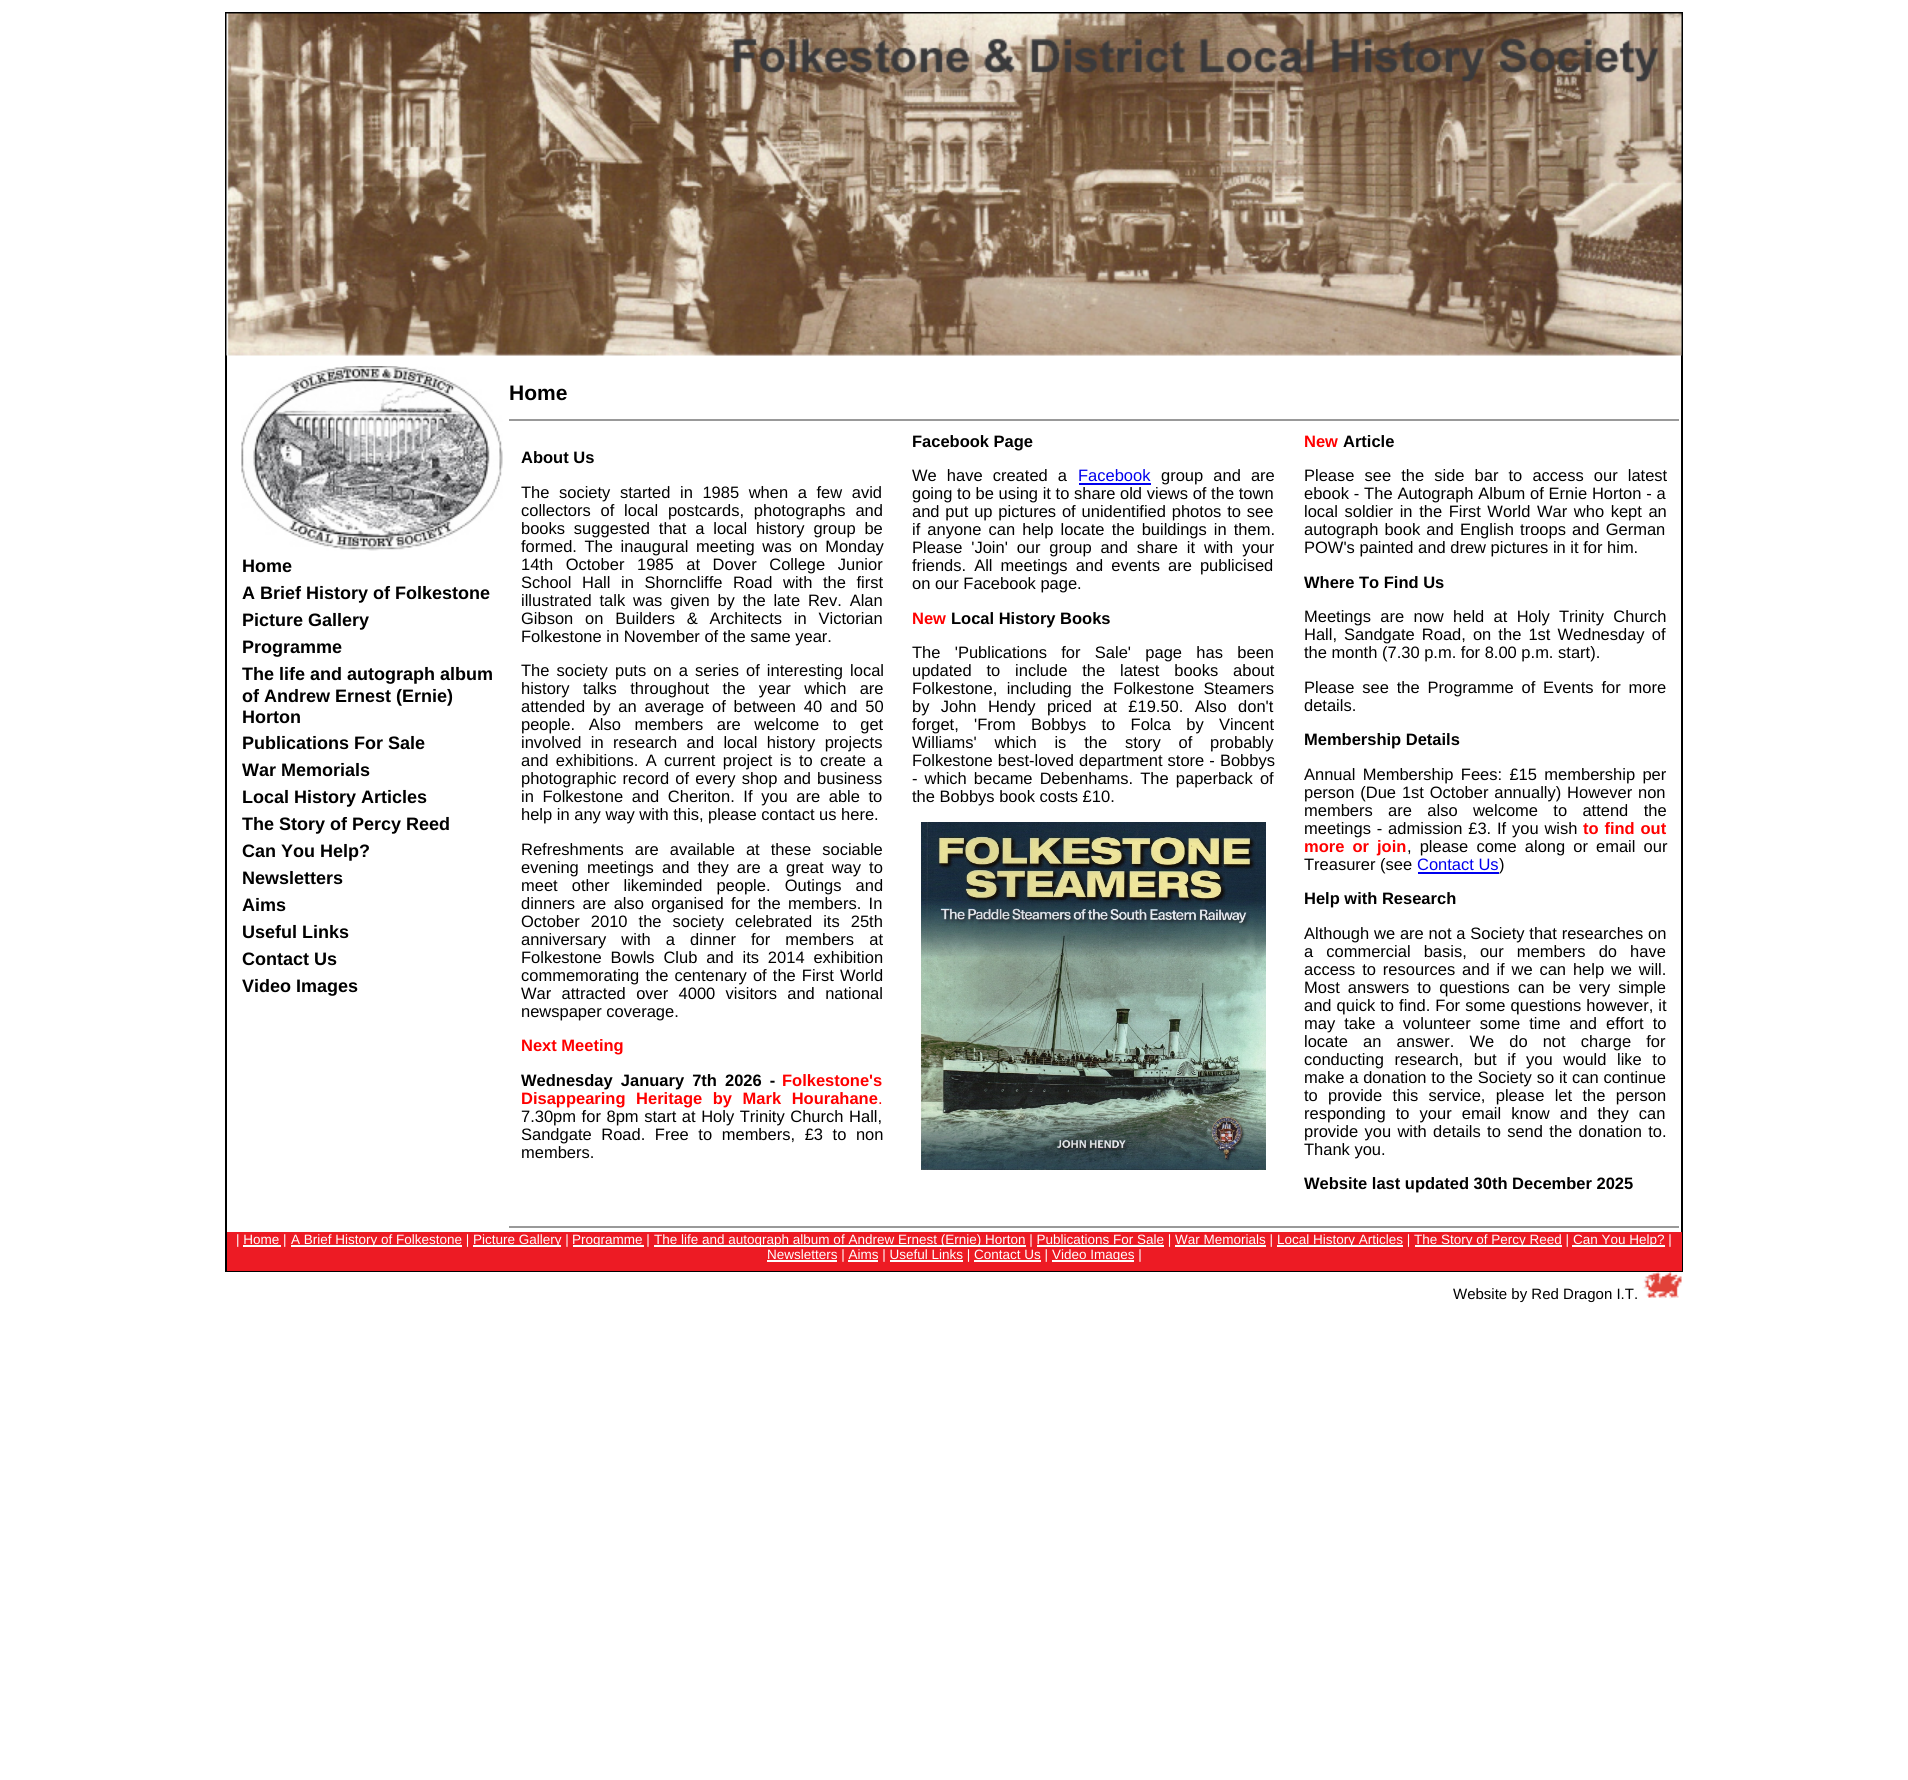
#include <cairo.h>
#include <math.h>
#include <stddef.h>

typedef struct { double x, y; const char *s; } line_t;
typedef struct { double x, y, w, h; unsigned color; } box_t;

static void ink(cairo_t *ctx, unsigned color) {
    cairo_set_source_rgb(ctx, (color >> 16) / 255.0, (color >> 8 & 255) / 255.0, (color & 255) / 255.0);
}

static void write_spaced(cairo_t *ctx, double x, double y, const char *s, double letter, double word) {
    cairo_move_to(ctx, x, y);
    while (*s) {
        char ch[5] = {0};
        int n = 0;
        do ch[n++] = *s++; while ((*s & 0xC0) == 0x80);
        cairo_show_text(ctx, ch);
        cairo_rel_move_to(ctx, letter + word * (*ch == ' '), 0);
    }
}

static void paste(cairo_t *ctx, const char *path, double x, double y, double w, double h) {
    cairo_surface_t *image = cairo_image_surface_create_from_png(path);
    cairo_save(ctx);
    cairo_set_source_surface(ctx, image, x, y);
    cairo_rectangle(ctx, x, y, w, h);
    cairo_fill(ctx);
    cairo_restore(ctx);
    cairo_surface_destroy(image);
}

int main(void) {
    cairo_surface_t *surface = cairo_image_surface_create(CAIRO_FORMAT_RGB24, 1908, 1780);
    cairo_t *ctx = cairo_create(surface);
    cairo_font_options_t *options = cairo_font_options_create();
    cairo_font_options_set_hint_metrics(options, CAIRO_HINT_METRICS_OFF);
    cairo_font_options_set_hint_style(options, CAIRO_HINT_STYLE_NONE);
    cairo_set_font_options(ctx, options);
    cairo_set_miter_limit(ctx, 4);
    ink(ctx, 0xFFFFFF);
    cairo_paint(ctx);
    cairo_rectangle(ctx, 226, 13, 1456, 1258);
    ink(ctx, 0x000000);
    cairo_stroke(ctx);
    paste(ctx, "media/1.png", 226, 13, 1456, 343);
    paste(ctx, "media/2.png", 241, 366, 262, 185);
    cairo_select_font_face(ctx, "Liberation Sans", CAIRO_FONT_SLANT_NORMAL, CAIRO_FONT_WEIGHT_BOLD);
    cairo_set_font_size(ctx, 18);
    {
        static const line_t items[] = {
            {242, 572, "Home"},
            {242, 599, "A Brief History of Folkestone"},
            {242, 626, "Picture Gallery"},
            {242, 653, "Programme"},
            {242, 680, "The life and autograph album"},
            {242, 702, "of Andrew Ernest (Ernie)"},
            {242, 723, "Horton"},
            {242, 749, "Publications For Sale"},
            {242, 776, "War Memorials"},
            {242, 803, "Local History Articles"},
            {242, 830, "The Story of Percy Reed"},
            {242, 857, "Can You Help?"},
            {242, 884, "Newsletters"},
            {242, 911, "Aims"},
            {242, 938, "Useful Links"},
            {242, 965, "Contact Us"},
            {242, 992, "Video Images"},
        };
        for (size_t i = 0; i < sizeof items / sizeof *items; i++) {
            cairo_move_to(ctx, items[i].x, items[i].y);
            cairo_show_text(ctx, items[i].s);
        }
    }
    cairo_set_font_size(ctx, 21);
    cairo_move_to(ctx, 509, 400);
    cairo_show_text(ctx, "Home");
    ink(ctx, 0x999999);
    cairo_rectangle(ctx, 509, 419, 1170, 2);
    cairo_fill(ctx);
    cairo_rectangle(ctx, 509, 1226, 1170, 2);
    cairo_fill(ctx);
    cairo_set_font_size(ctx, 16.5);
    ink(ctx, 0x000000);
    cairo_move_to(ctx, 912, 447);
    cairo_show_text(ctx, "Facebook Page");
    ink(ctx, 0xFF0000);
    cairo_move_to(ctx, 1304, 447);
    cairo_show_text(ctx, "New");
    ink(ctx, 0x000000);
    cairo_move_to(ctx, 1343, 447);
    cairo_show_text(ctx, "Article");
    cairo_move_to(ctx, 521, 463);
    cairo_show_text(ctx, "About Us");
    cairo_select_font_face(ctx, "Liberation Sans", CAIRO_FONT_SLANT_NORMAL, CAIRO_FONT_WEIGHT_NORMAL);
    write_spaced(ctx, 521, 498, "The society started in 1985 when a few avid", 0, 5);
    write_spaced(ctx, 521, 516, "collectors of local postcards, photographs and", 0, 5.25);
    write_spaced(ctx, 521, 534, "books suggested that a local history group be", 0, 4.25);
    write_spaced(ctx, 521, 552, "formed. The inaugural meeting was on Monday", 0, 3);
    write_spaced(ctx, 521, 570, "14th October 1985 at Dover College Junior", 0, 8);
    write_spaced(ctx, 521, 588, "School Hall in Shorncliffe Road with the first", 0, 6);
    write_spaced(ctx, 521, 606, "illustrated talk was given by the late Rev. Alan", 0, 3.25);
    write_spaced(ctx, 521, 624, "Gibson on Builders & Architects in Victorian", 0, 7.25);
    cairo_move_to(ctx, 521, 642);
    cairo_show_text(ctx, "Folkestone in November of the same year.");
    write_spaced(ctx, 912, 481, "We have created a", 0, 5.5);
    ink(ctx, 0x0000EE);
    cairo_move_to(ctx, 1078, 481);
    cairo_show_text(ctx, "Facebook");
    cairo_rectangle(ctx, 1079, 483, 72, 2);
    cairo_fill(ctx);
    ink(ctx, 0x000000);
    write_spaced(ctx, 1161, 481, "group and are", 0, 5.5);
    write_spaced(ctx, 912, 499, "going to be using it to share old views of the town", 0, 0.1);
    write_spaced(ctx, 912, 517, "and put up pictures of unidentified photos to see", 0, 1.25);
    write_spaced(ctx, 912, 535, "if anyone can help locate the buildings in them.", 0, 2.5);
    write_spaced(ctx, 912, 553, "Please 'Join' our group and share it with your", 0, 4.25);
    write_spaced(ctx, 912, 571, "friends. All meetings and events are publicised", 0, 3.5);
    cairo_move_to(ctx, 912, 589);
    cairo_show_text(ctx, "on our Facebook page.");
    write_spaced(ctx, 1304, 481, "Please see the side bar to access our latest", 0, 5.5);
    write_spaced(ctx, 1304, 499, "ebook - The Autograph Album of Ernie Horton - a", 0, 0.25);
    write_spaced(ctx, 1304, 517, "local soldier in the First World War who kept an", 0, 2);
    write_spaced(ctx, 1304, 535, "autograph book and English troops and German", 0, 1.5);
    cairo_move_to(ctx, 1304, 553);
    cairo_show_text(ctx, "POW's painted and drew pictures in it for him.");
    cairo_select_font_face(ctx, "Liberation Sans", CAIRO_FONT_SLANT_NORMAL, CAIRO_FONT_WEIGHT_BOLD);
    cairo_move_to(ctx, 1304, 588);
    cairo_show_text(ctx, "Where To Find Us");
    ink(ctx, 0xFF0000);
    cairo_move_to(ctx, 912, 624);
    cairo_show_text(ctx, "New");
    ink(ctx, 0x000000);
    cairo_move_to(ctx, 951, 624);
    cairo_show_text(ctx, "Local History Books");
    cairo_select_font_face(ctx, "Liberation Sans", CAIRO_FONT_SLANT_NORMAL, CAIRO_FONT_WEIGHT_NORMAL);
    write_spaced(ctx, 1304, 622, "Meetings are now held at Holy Trinity Church", 0, 4.75);
    write_spaced(ctx, 1304, 640, "Hall, Sandgate Road, on the 1st Wednesday of", 0, 2.5);
    cairo_move_to(ctx, 1304, 658);
    cairo_show_text(ctx, "the month (7.30 p.m. for 8.00 p.m. start).");
    write_spaced(ctx, 521, 676, "The society puts on a series of interesting local", 0, 2.5);
    write_spaced(ctx, 521, 694, "history talks throughout the year which are", 0, 8.75);
    write_spaced(ctx, 521, 712, "attended by an average of between 40 and 50", 0, 3.25);
    write_spaced(ctx, 521, 730, "people. Also members are welcome to get", 0, 9);
    write_spaced(ctx, 521, 748, "involved in research and local history projects", 0, 4.75);
    write_spaced(ctx, 521, 766, "and exhibitions. A current project is to create a", 0, 2.75);
    write_spaced(ctx, 521, 784, "photographic record of every shop and business", 0, 1.5);
    write_spaced(ctx, 521, 802, "in Folkestone and Cheriton. If you are able to", 0, 4);
    cairo_move_to(ctx, 521, 820);
    cairo_show_text(ctx, "help in any way with this, please contact us here.");
    write_spaced(ctx, 912, 658, "The 'Publications for Sale' page has been", 0, 9.75);
    write_spaced(ctx, 912, 676, "updated to include the latest books about", 0, 10.25);
    write_spaced(ctx, 912, 694, "Folkestone, including the Folkestone Steamers", 0, 4.75);
    write_spaced(ctx, 912, 712, "by John Hendy priced at £19.50. Also don't", 0, 6.75);
    write_spaced(ctx, 912, 730, "forget, 'From Bobbys to Folca by Vincent", 0, 10.75);
    write_spaced(ctx, 912, 748, "Williams' which is the story of probably", 0, 13.25);
    write_spaced(ctx, 912, 766, "Folkestone best-loved department store - Bobbys", 0, 0.5);
    write_spaced(ctx, 912, 784, "- which became Debenhams. The paperback of", 0, 2.5);
    cairo_move_to(ctx, 912, 802);
    cairo_show_text(ctx, "the Bobbys book costs £10.");
    write_spaced(ctx, 1304, 693, "Please see the Programme of Events for more", 0, 3.25);
    cairo_move_to(ctx, 1304, 711);
    cairo_show_text(ctx, "details.");
    cairo_select_font_face(ctx, "Liberation Sans", CAIRO_FONT_SLANT_NORMAL, CAIRO_FONT_WEIGHT_BOLD);
    cairo_move_to(ctx, 1304, 745);
    cairo_show_text(ctx, "Membership Details");
    cairo_select_font_face(ctx, "Liberation Sans", CAIRO_FONT_SLANT_NORMAL, CAIRO_FONT_WEIGHT_NORMAL);
    write_spaced(ctx, 521, 855, "Refreshments are available at these sociable", 0, 6.5);
    write_spaced(ctx, 521, 873, "evening meetings and they are a great way to", 0, 3.5);
    write_spaced(ctx, 521, 891, "meet other likeminded people. Outings and", 0, 9.5);
    write_spaced(ctx, 521, 909, "dinners are also organised for the members. In", 0, 2.75);
    write_spaced(ctx, 521, 927, "October 2010 the society celebrated its 25th", 0, 6.5);
    write_spaced(ctx, 521, 945, "anniversary with a dinner for members at", 0, 10.5);
    write_spaced(ctx, 521, 963, "Folkestone Bowls Club and its 2014 exhibition", 0, 4.25);
    write_spaced(ctx, 521, 981, "commemorating the centenary of the First World", 0, 1.5);
    write_spaced(ctx, 521, 999, "War attracted over 4000 visitors and national", 0, 5.75);
    cairo_move_to(ctx, 521, 1017);
    cairo_show_text(ctx, "newspaper coverage.");
    paste(ctx, "media/3.png", 921, 822, 345, 348);
    write_spaced(ctx, 1304, 780, "Annual Membership Fees: £15 membership per", 0, 2.75);
    write_spaced(ctx, 1304, 798, "person (Due 1st October annually) However non", 0, 1.25);
    write_spaced(ctx, 1304, 816, "members are also welcome to attend the", 0, 10.75);
    write_spaced(ctx, 1304, 834, "meetings - admission £3. If you wish", 0, 1.25);
    cairo_select_font_face(ctx, "Liberation Sans", CAIRO_FONT_SLANT_NORMAL, CAIRO_FONT_WEIGHT_BOLD);
    ink(ctx, 0xFF0000);
    write_spaced(ctx, 1583, 834, "to find out", 0, 1.25);
    write_spaced(ctx, 1304, 852, "more or join", 0, 3.5);
    cairo_select_font_face(ctx, "Liberation Sans", CAIRO_FONT_SLANT_NORMAL, CAIRO_FONT_WEIGHT_NORMAL);
    ink(ctx, 0x000000);
    write_spaced(ctx, 1407, 852, ", please come along or email our", 0, 3.5);
    cairo_move_to(ctx, 1304, 870);
    cairo_show_text(ctx, "Treasurer (see");
    ink(ctx, 0x0000EE);
    cairo_move_to(ctx, 1417, 870);
    cairo_show_text(ctx, "Contact Us");
    cairo_rectangle(ctx, 1418, 872, 81, 2);
    cairo_fill(ctx);
    ink(ctx, 0x000000);
    cairo_move_to(ctx, 1499, 870);
    cairo_show_text(ctx, ")");
    cairo_select_font_face(ctx, "Liberation Sans", CAIRO_FONT_SLANT_NORMAL, CAIRO_FONT_WEIGHT_BOLD);
    cairo_move_to(ctx, 1304, 904);
    cairo_show_text(ctx, "Help with Research");
    ink(ctx, 0xFF0000);
    cairo_move_to(ctx, 521, 1051);
    cairo_show_text(ctx, "Next Meeting");
    cairo_select_font_face(ctx, "Liberation Sans", CAIRO_FONT_SLANT_NORMAL, CAIRO_FONT_WEIGHT_NORMAL);
    ink(ctx, 0x000000);
    write_spaced(ctx, 1304, 939, "Although we are not a Society that researches on", 0, 0.25);
    write_spaced(ctx, 1304, 957, "a commercial basis, our members do have", 0, 8.5);
    write_spaced(ctx, 1304, 975, "access to resources and if we can help we will.", 0, 2.25);
    write_spaced(ctx, 1304, 993, "Most answers to questions can be very simple", 0, 3.5);
    write_spaced(ctx, 1304, 1011, "and quick to find. For some questions however, it", 0, 0.5);
    write_spaced(ctx, 1304, 1029, "may take a volunteer some time and effort to", 0, 4.5);
    write_spaced(ctx, 1304, 1047, "locate an answer. We do not charge for", 0, 10.5);
    write_spaced(ctx, 1304, 1065, "conducting research, but if you would like to", 0, 6);
    write_spaced(ctx, 1304, 1083, "make a donation to the Society so it can continue", 0, 0.25);
    write_spaced(ctx, 1304, 1101, "to provide this service, please let the person", 0, 5.75);
    write_spaced(ctx, 1304, 1119, "responding to your email know and they can", 0, 5.5);
    write_spaced(ctx, 1304, 1137, "provide you with details to send the donation to.", 0, 1.75);
    cairo_move_to(ctx, 1304, 1155);
    cairo_show_text(ctx, "Thank you.");
    cairo_select_font_face(ctx, "Liberation Sans", CAIRO_FONT_SLANT_NORMAL, CAIRO_FONT_WEIGHT_BOLD);
    write_spaced(ctx, 521, 1086, "Wednesday January 7th 2026 -", 0, 3.5);
    ink(ctx, 0xFF0000);
    cairo_move_to(ctx, 782, 1086);
    cairo_show_text(ctx, "Folkestone's");
    write_spaced(ctx, 521, 1104, "Disappearing Heritage by Mark Hourahane", 0, 6);
    cairo_select_font_face(ctx, "Liberation Sans", CAIRO_FONT_SLANT_NORMAL, CAIRO_FONT_WEIGHT_NORMAL);
    cairo_move_to(ctx, 878, 1104);
    cairo_show_text(ctx, ".");
    ink(ctx, 0x000000);
    write_spaced(ctx, 521, 1122, "7.30pm for 8pm start at Holy Trinity Church Hall,", 0, 1);
    write_spaced(ctx, 521, 1140, "Sandgate Road. Free to members, £3 to non", 0, 5);
    cairo_move_to(ctx, 521, 1158);
    cairo_show_text(ctx, "members.");
    cairo_select_font_face(ctx, "Liberation Sans", CAIRO_FONT_SLANT_NORMAL, CAIRO_FONT_WEIGHT_BOLD);
    cairo_move_to(ctx, 1304, 1189);
    cairo_show_text(ctx, "Website last updated 30th December 2025");
    ink(ctx, 0xED1B24);
    cairo_rectangle(ctx, 227, 1232, 1455, 39);
    cairo_fill(ctx);
    cairo_select_font_face(ctx, "Liberation Sans", CAIRO_FONT_SLANT_NORMAL, CAIRO_FONT_WEIGHT_NORMAL);
    cairo_set_font_size(ctx, 13.5);
    ink(ctx, 0xFFFFFF);
    cairo_move_to(ctx, 236, 1244);
    cairo_show_text(ctx, "| Home |");
    cairo_rectangle(ctx, 291, 1245, 171, 2);
    cairo_fill(ctx);
    cairo_move_to(ctx, 291, 1244);
    cairo_show_text(ctx, "A Brief History of Folkestone |");
    cairo_rectangle(ctx, 473, 1245, 88, 2);
    cairo_fill(ctx);
    cairo_move_to(ctx, 473, 1244);
    cairo_show_text(ctx, "Picture Gallery |");
    cairo_rectangle(ctx, 573, 1245, 71, 2);
    cairo_fill(ctx);
    cairo_move_to(ctx, 572, 1244);
    cairo_show_text(ctx, "Programme |");
    cairo_rectangle(ctx, 654, 1245, 372, 2);
    cairo_fill(ctx);
    cairo_move_to(ctx, 654, 1244);
    cairo_show_text(ctx, "The life and autograph album of Andrew Ernest (Ernie) Horton | Publications For Sale | War Memorials |");
    cairo_rectangle(ctx, 1277, 1245, 126, 2);
    cairo_fill(ctx);
    cairo_move_to(ctx, 1277, 1244);
    cairo_show_text(ctx, "Local History Articles |");
    cairo_rectangle(ctx, 1415, 1245, 147, 2);
    cairo_fill(ctx);
    cairo_move_to(ctx, 1414, 1244);
    cairo_show_text(ctx, "The Story of Percy Reed |");
    cairo_rectangle(ctx, 1572, 1245, 93, 2);
    cairo_fill(ctx);
    cairo_move_to(ctx, 1573, 1244);
    cairo_show_text(ctx, "Can You Help? |");
    {
        static const box_t items[] = {
            {243, 1245, 38, 2, 0xFFFFFF},
            {1037, 1245, 127, 2, 0xFFFFFF},
            {1175, 1245, 91, 2, 0xFFFFFF},
            {767, 1260, 70, 2, 0xFFFFFF},
        };
        for (size_t i = 0; i < sizeof items / sizeof *items; i++) {
            ink(ctx, items[i].color);
            cairo_rectangle(ctx, items[i].x, items[i].y, items[i].w, items[i].h);
            cairo_fill(ctx);
        }
    }
    cairo_move_to(ctx, 767, 1259);
    cairo_show_text(ctx, "Newsletters | Aims | Useful Links | Contact Us |");
    cairo_rectangle(ctx, 1052, 1260, 82, 2);
    cairo_fill(ctx);
    cairo_move_to(ctx, 1052, 1259);
    cairo_show_text(ctx, "Video Images |");
    {
        static const box_t items[] = {
            {848, 1260, 30, 2, 0xFFFFFF},
            {890, 1260, 73, 2, 0xFFFFFF},
            {974, 1260, 67, 2, 0xFFFFFF},
        };
        for (size_t i = 0; i < sizeof items / sizeof *items; i++) {
            ink(ctx, items[i].color);
            cairo_rectangle(ctx, items[i].x, items[i].y, items[i].w, items[i].h);
            cairo_fill(ctx);
        }
    }
    cairo_set_font_size(ctx, 15);
    ink(ctx, 0x000000);
    cairo_move_to(ctx, 1453, 1299);
    cairo_show_text(ctx, "Website by Red Dragon I.T.");
    paste(ctx, "media/4.png", 1642, 1272, 40, 27);
    cairo_surface_write_to_png(surface, "image.png");
    cairo_font_options_destroy(options);
    cairo_destroy(ctx);
    cairo_surface_destroy(surface);
    return 0;
}
